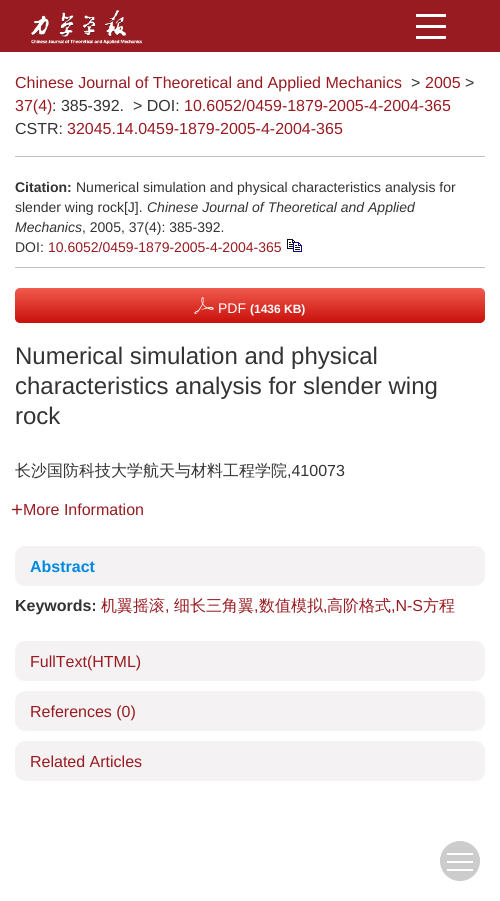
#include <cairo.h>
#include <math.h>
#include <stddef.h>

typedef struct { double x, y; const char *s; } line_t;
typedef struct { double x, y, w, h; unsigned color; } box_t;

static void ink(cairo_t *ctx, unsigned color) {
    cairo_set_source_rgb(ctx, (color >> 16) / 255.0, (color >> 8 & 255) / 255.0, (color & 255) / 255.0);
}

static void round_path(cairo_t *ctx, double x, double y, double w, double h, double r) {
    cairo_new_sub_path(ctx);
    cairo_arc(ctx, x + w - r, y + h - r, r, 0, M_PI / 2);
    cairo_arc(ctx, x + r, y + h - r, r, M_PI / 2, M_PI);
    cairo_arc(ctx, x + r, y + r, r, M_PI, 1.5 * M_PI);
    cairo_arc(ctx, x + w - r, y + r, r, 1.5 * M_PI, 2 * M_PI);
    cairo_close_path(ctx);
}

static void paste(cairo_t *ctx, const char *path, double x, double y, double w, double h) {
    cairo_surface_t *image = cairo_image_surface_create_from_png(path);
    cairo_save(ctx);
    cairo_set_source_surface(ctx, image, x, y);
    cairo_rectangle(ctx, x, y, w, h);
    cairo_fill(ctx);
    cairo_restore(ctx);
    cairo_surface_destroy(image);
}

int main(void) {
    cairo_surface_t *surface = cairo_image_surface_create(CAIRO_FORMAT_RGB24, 500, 901);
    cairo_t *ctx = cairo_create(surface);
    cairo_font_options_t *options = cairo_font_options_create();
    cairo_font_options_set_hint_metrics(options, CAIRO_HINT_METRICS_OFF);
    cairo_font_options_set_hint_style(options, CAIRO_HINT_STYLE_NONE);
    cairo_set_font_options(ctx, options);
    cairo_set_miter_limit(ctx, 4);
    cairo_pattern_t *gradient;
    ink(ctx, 0xFFFFFF);
    cairo_paint(ctx);
    ink(ctx, 0x981B21);
    cairo_rectangle(ctx, 0, 0, 500, 52);
    cairo_fill(ctx);
    paste(ctx, "media/1.png", 31, 10, 111, 34);
    {
        static const box_t items[] = {
            {416, 14, 30, 3, 0xFFFFFF},
            {416, 25, 30, 3, 0xFFFFFF},
            {416, 36, 30, 3, 0xFFFFFF},
            {15, 156, 470, 1, 0xC1C1C1},
        };
        for (size_t i = 0; i < sizeof items / sizeof *items; i++) {
            ink(ctx, items[i].color);
            cairo_rectangle(ctx, items[i].x, items[i].y, items[i].w, items[i].h);
            cairo_fill(ctx);
        }
    }
    cairo_select_font_face(ctx, "Liberation Sans", CAIRO_FONT_SLANT_NORMAL, CAIRO_FONT_WEIGHT_NORMAL);
    cairo_set_font_size(ctx, 16);
    ink(ctx, 0x981B21);
    cairo_move_to(ctx, 15, 88);
    cairo_show_text(ctx, "Chinese Journal of Theoretical and Applied Mechanics");
    ink(ctx, 0x333333);
    cairo_move_to(ctx, 411, 88);
    cairo_show_text(ctx, ">");
    ink(ctx, 0x981B21);
    cairo_move_to(ctx, 425, 88);
    cairo_show_text(ctx, "2005");
    ink(ctx, 0x333333);
    cairo_move_to(ctx, 465, 88);
    cairo_show_text(ctx, ">");
    ink(ctx, 0x981B21);
    cairo_move_to(ctx, 15, 111);
    cairo_show_text(ctx, "37(4)");
    ink(ctx, 0x333333);
    cairo_move_to(ctx, 52, 111);
    cairo_show_text(ctx, ": 385-392.");
    cairo_move_to(ctx, 133, 111);
    cairo_show_text(ctx, "> DOI:");
    ink(ctx, 0x981B21);
    cairo_move_to(ctx, 184, 111);
    cairo_show_text(ctx, "10.6052/0459-1879-2005-4-2004-365");
    ink(ctx, 0x333333);
    cairo_move_to(ctx, 15, 134);
    cairo_show_text(ctx, "CSTR:");
    ink(ctx, 0x981B21);
    cairo_move_to(ctx, 67, 134);
    cairo_show_text(ctx, "32045.14.0459-1879-2005-4-2004-365");
    ink(ctx, 0xC1C1C1);
    cairo_rectangle(ctx, 15, 267, 470, 1);
    cairo_fill(ctx);
    cairo_select_font_face(ctx, "Liberation Sans", CAIRO_FONT_SLANT_NORMAL, CAIRO_FONT_WEIGHT_BOLD);
    cairo_set_font_size(ctx, 14);
    ink(ctx, 0x333333);
    cairo_move_to(ctx, 15, 192);
    cairo_show_text(ctx, "Citation:");
    cairo_select_font_face(ctx, "Liberation Sans", CAIRO_FONT_SLANT_NORMAL, CAIRO_FONT_WEIGHT_NORMAL);
    cairo_move_to(ctx, 76, 192);
    cairo_show_text(ctx, "Numerical simulation and physical characteristics analysis for");
    cairo_move_to(ctx, 15, 212);
    cairo_show_text(ctx, "slender wing rock[J].");
    cairo_select_font_face(ctx, "Liberation Sans", CAIRO_FONT_SLANT_ITALIC, CAIRO_FONT_WEIGHT_NORMAL);
    cairo_move_to(ctx, 147, 212);
    cairo_show_text(ctx, "Chinese Journal of Theoretical and Applied");
    cairo_move_to(ctx, 15, 232);
    cairo_show_text(ctx, "Mechanics");
    cairo_select_font_face(ctx, "Liberation Sans", CAIRO_FONT_SLANT_NORMAL, CAIRO_FONT_WEIGHT_NORMAL);
    cairo_move_to(ctx, 82, 232);
    cairo_show_text(ctx, ", 2005, 37(4): 385-392.");
    cairo_move_to(ctx, 15, 252);
    cairo_show_text(ctx, "DOI:");
    ink(ctx, 0x981B21);
    cairo_move_to(ctx, 48, 252);
    cairo_show_text(ctx, "10.6052/0459-1879-2005-4-2004-365");
    paste(ctx, "media/2.png", 287, 239, 15, 13);
    gradient = cairo_pattern_create_linear(250, 288, 250, 323);
    cairo_pattern_add_color_stop_rgba(gradient, 0, 0.945, 0.353, 0.302, 1);
    cairo_pattern_add_color_stop_rgba(gradient, 1, 0.784, 0.063, 0.043, 1);
    cairo_set_source(ctx, gradient);
    cairo_pattern_destroy(gradient);
    round_path(ctx, 15, 288, 470, 35, 5);
    cairo_fill(ctx);
    paste(ctx, "media/3.png", 194, 297, 20, 17);
    ink(ctx, 0xFFFFFF);
    cairo_move_to(ctx, 218, 313);
    cairo_show_text(ctx, "PDF");
    cairo_select_font_face(ctx, "Liberation Sans", CAIRO_FONT_SLANT_NORMAL, CAIRO_FONT_WEIGHT_BOLD);
    cairo_set_font_size(ctx, 12);
    cairo_move_to(ctx, 250, 313);
    cairo_show_text(ctx, "(1436 KB)");
    cairo_select_font_face(ctx, "Liberation Sans", CAIRO_FONT_SLANT_NORMAL, CAIRO_FONT_WEIGHT_NORMAL);
    cairo_set_font_size(ctx, 24);
    ink(ctx, 0x333333);
    {
        static const line_t items[] = {
            {15, 364, "Numerical simulation and physical"},
            {15, 394, "characteristics analysis for slender wing"},
            {15, 424, "rock"},
        };
        for (size_t i = 0; i < sizeof items / sizeof *items; i++) {
            cairo_move_to(ctx, items[i].x, items[i].y);
            cairo_show_text(ctx, items[i].s);
        }
    }
    cairo_select_font_face(ctx, "WenQuanYi Zen Hei Medium", CAIRO_FONT_SLANT_NORMAL, CAIRO_FONT_WEIGHT_NORMAL);
    cairo_set_font_size(ctx, 16);
    cairo_move_to(ctx, 15, 476);
    cairo_show_text(ctx, "长沙国防科技大学航天与材料工程学院");
    cairo_select_font_face(ctx, "Liberation Sans", CAIRO_FONT_SLANT_NORMAL, CAIRO_FONT_WEIGHT_NORMAL);
    cairo_move_to(ctx, 287, 476);
    cairo_show_text(ctx, ",410073");
    paste(ctx, "media/4.png", 12, 504, 10, 11);
    ink(ctx, 0x981B21);
    cairo_move_to(ctx, 23, 515);
    cairo_show_text(ctx, "More Information");
    ink(ctx, 0xF4F2F2);
    round_path(ctx, 15, 546, 470, 40, 10);
    cairo_fill(ctx);
    cairo_select_font_face(ctx, "Liberation Sans", CAIRO_FONT_SLANT_NORMAL, CAIRO_FONT_WEIGHT_BOLD);
    ink(ctx, 0x0089E3);
    cairo_move_to(ctx, 30, 572);
    cairo_show_text(ctx, "Abstract");
    ink(ctx, 0x333333);
    cairo_move_to(ctx, 15, 611);
    cairo_show_text(ctx, "Keywords:");
    cairo_select_font_face(ctx, "WenQuanYi Zen Hei Medium", CAIRO_FONT_SLANT_NORMAL, CAIRO_FONT_WEIGHT_NORMAL);
    ink(ctx, 0x981B21);
    cairo_move_to(ctx, 101, 611);
    cairo_show_text(ctx, "机翼摇滚");
    cairo_select_font_face(ctx, "Liberation Sans", CAIRO_FONT_SLANT_NORMAL, CAIRO_FONT_WEIGHT_NORMAL);
    cairo_move_to(ctx, 165, 611);
    cairo_show_text(ctx, ",");
    cairo_select_font_face(ctx, "WenQuanYi Zen Hei Medium", CAIRO_FONT_SLANT_NORMAL, CAIRO_FONT_WEIGHT_NORMAL);
    cairo_move_to(ctx, 174, 611);
    cairo_show_text(ctx, "细长三角翼");
    cairo_select_font_face(ctx, "Liberation Sans", CAIRO_FONT_SLANT_NORMAL, CAIRO_FONT_WEIGHT_NORMAL);
    cairo_move_to(ctx, 254, 611);
    cairo_show_text(ctx, ",");
    cairo_select_font_face(ctx, "WenQuanYi Zen Hei Medium", CAIRO_FONT_SLANT_NORMAL, CAIRO_FONT_WEIGHT_NORMAL);
    cairo_move_to(ctx, 259, 611);
    cairo_show_text(ctx, "数值模拟");
    cairo_select_font_face(ctx, "Liberation Sans", CAIRO_FONT_SLANT_NORMAL, CAIRO_FONT_WEIGHT_NORMAL);
    cairo_move_to(ctx, 323, 611);
    cairo_show_text(ctx, ",");
    cairo_select_font_face(ctx, "WenQuanYi Zen Hei Medium", CAIRO_FONT_SLANT_NORMAL, CAIRO_FONT_WEIGHT_NORMAL);
    cairo_move_to(ctx, 327, 611);
    cairo_show_text(ctx, "高阶格式");
    cairo_select_font_face(ctx, "Liberation Sans", CAIRO_FONT_SLANT_NORMAL, CAIRO_FONT_WEIGHT_NORMAL);
    cairo_move_to(ctx, 391, 611);
    cairo_show_text(ctx, ",N-S");
    cairo_select_font_face(ctx, "WenQuanYi Zen Hei Medium", CAIRO_FONT_SLANT_NORMAL, CAIRO_FONT_WEIGHT_NORMAL);
    cairo_move_to(ctx, 423, 611);
    cairo_show_text(ctx, "方程");
    ink(ctx, 0xF4F2F2);
    round_path(ctx, 15, 641, 470, 40, 10);
    cairo_fill(ctx);
    cairo_select_font_face(ctx, "Liberation Sans", CAIRO_FONT_SLANT_NORMAL, CAIRO_FONT_WEIGHT_NORMAL);
    ink(ctx, 0x981B21);
    cairo_move_to(ctx, 30, 667);
    cairo_show_text(ctx, "FullText(HTML)");
    ink(ctx, 0xF4F2F2);
    round_path(ctx, 15, 691, 470, 40, 10);
    cairo_fill(ctx);
    ink(ctx, 0x981B21);
    cairo_move_to(ctx, 30, 717);
    cairo_show_text(ctx, "References (0)");
    ink(ctx, 0xF4F2F2);
    round_path(ctx, 15, 741, 470, 40, 10);
    cairo_fill(ctx);
    ink(ctx, 0x981B21);
    cairo_move_to(ctx, 30, 767);
    cairo_show_text(ctx, "Related Articles");
    ink(ctx, 0xCCCCCC);
    cairo_new_path(ctx);
    cairo_arc(ctx, 460, 861, 19.5, 0, 2 * M_PI);
    cairo_fill_preserve(ctx);
    cairo_set_line_width(ctx, 1);
    cairo_stroke(ctx);
    {
        static const box_t items[] = {
            {447, 853, 26, 2, 0xFFFFFF},
            {447, 861, 26, 2, 0xFFFFFF},
            {447, 869, 26, 2, 0xFFFFFF},
        };
        for (size_t i = 0; i < sizeof items / sizeof *items; i++) {
            ink(ctx, items[i].color);
            cairo_rectangle(ctx, items[i].x, items[i].y, items[i].w, items[i].h);
            cairo_fill(ctx);
        }
    }
    cairo_surface_write_to_png(surface, "image.png");
    cairo_font_options_destroy(options);
    cairo_destroy(ctx);
    cairo_surface_destroy(surface);
    return 0;
}
